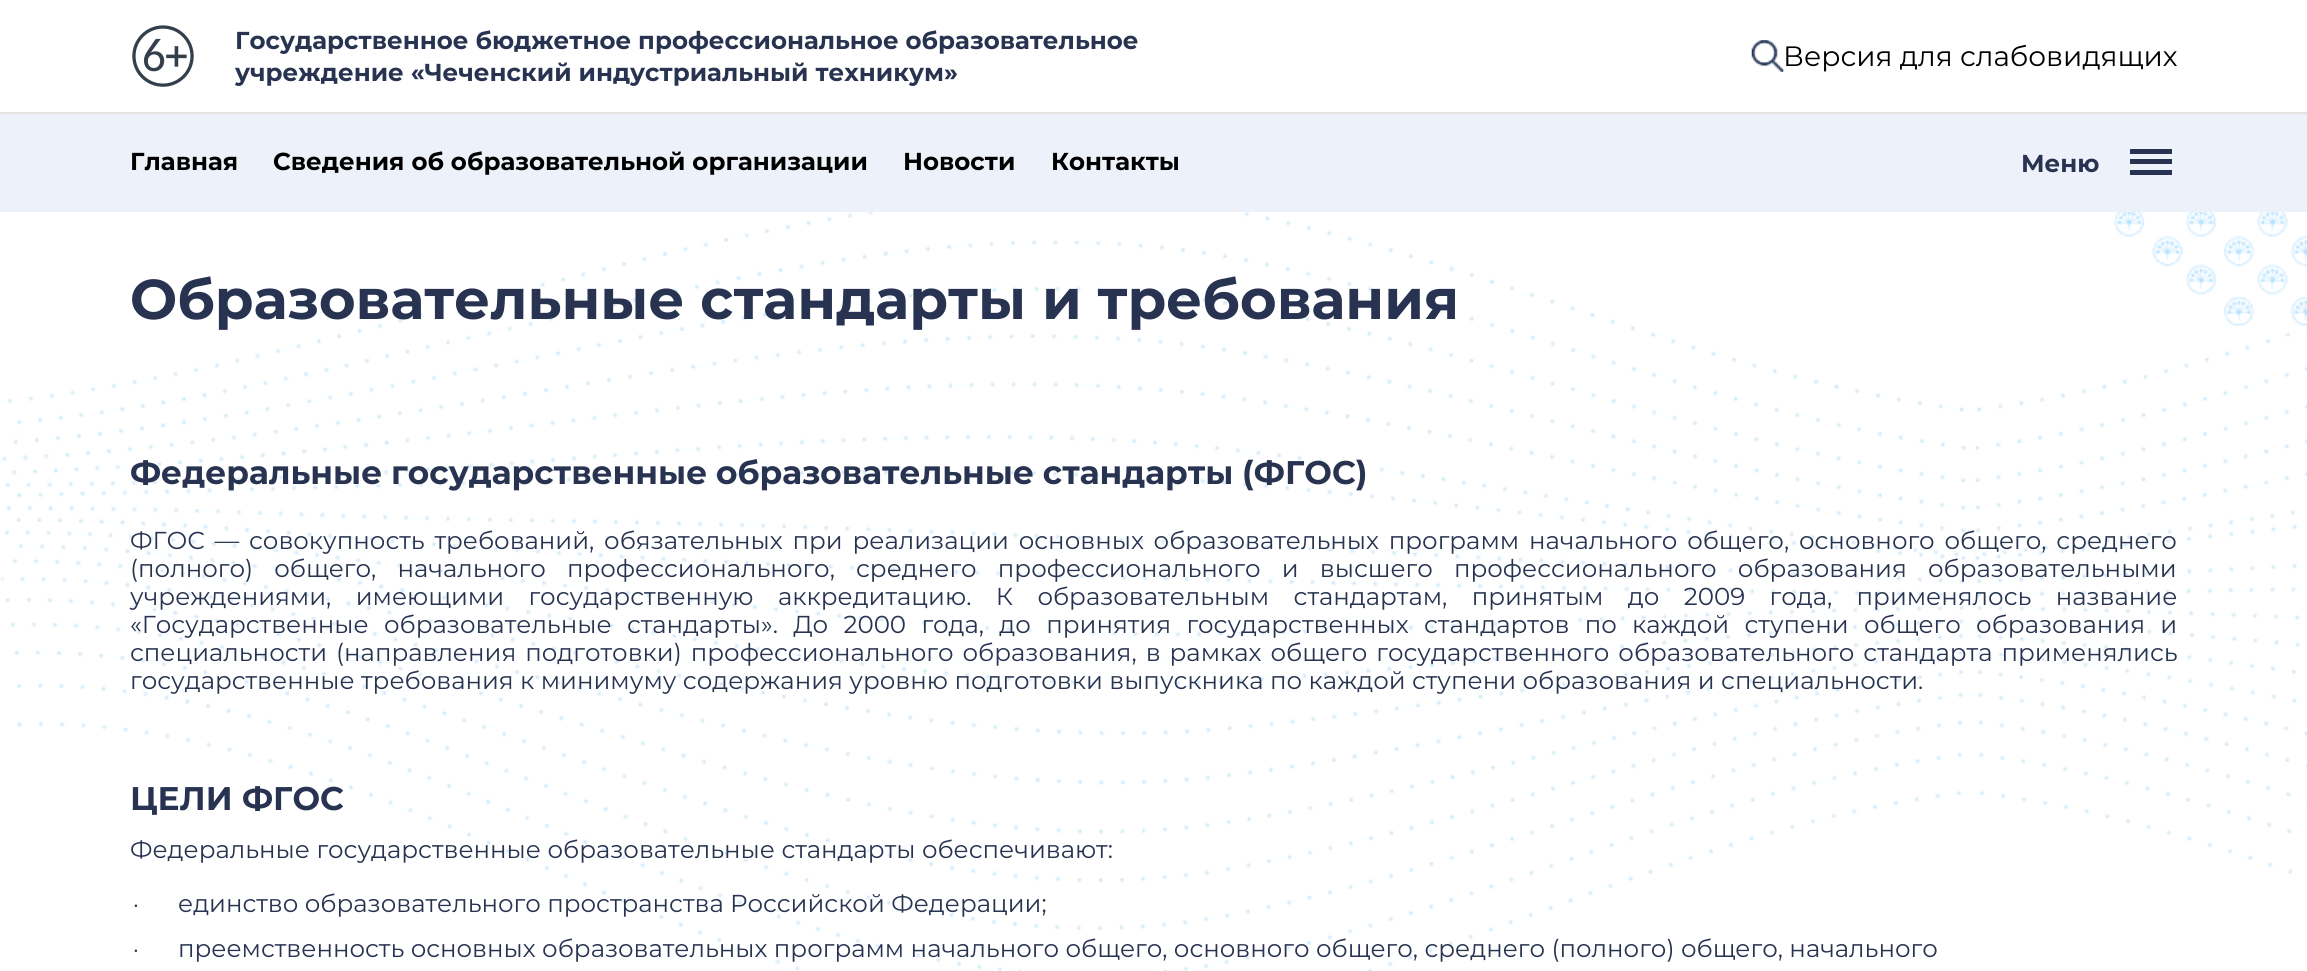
#include <cairo.h>
#include <math.h>
#include <stddef.h>

typedef struct { double x, y; const char *s; } line_t;
typedef struct { double x, y, w, h; unsigned color; } box_t;

static void ink(cairo_t *ctx, unsigned color) {
    cairo_set_source_rgb(ctx, (color >> 16) / 255.0, (color >> 8 & 255) / 255.0, (color & 255) / 255.0);
}

static void write_spaced(cairo_t *ctx, double x, double y, const char *s, double letter, double word) {
    cairo_move_to(ctx, x, y);
    while (*s) {
        char ch[5] = {0};
        int n = 0;
        do ch[n++] = *s++; while ((*s & 0xC0) == 0x80);
        cairo_show_text(ctx, ch);
        cairo_rel_move_to(ctx, letter + word * (*ch == ' '), 0);
    }
}

static void paste(cairo_t *ctx, const char *path, double x, double y, double w, double h) {
    cairo_surface_t *image = cairo_image_surface_create_from_png(path);
    cairo_save(ctx);
    cairo_set_source_surface(ctx, image, x, y);
    cairo_rectangle(ctx, x, y, w, h);
    cairo_fill(ctx);
    cairo_restore(ctx);
    cairo_surface_destroy(image);
}

int main(void) {
    cairo_surface_t *surface = cairo_image_surface_create(CAIRO_FORMAT_RGB24, 2307, 971);
    cairo_t *ctx = cairo_create(surface);
    cairo_font_options_t *options = cairo_font_options_create();
    cairo_font_options_set_hint_metrics(options, CAIRO_HINT_METRICS_OFF);
    cairo_font_options_set_hint_style(options, CAIRO_HINT_STYLE_NONE);
    cairo_set_font_options(ctx, options);
    cairo_set_miter_limit(ctx, 4);
    ink(ctx, 0xFFFFFF);
    cairo_paint(ctx);
    paste(ctx, "media/1.png", 0, 212, 2307, 759);
    ink(ctx, 0xE3E3E3);
    cairo_rectangle(ctx, 0, 112, 2307, 2);
    cairo_fill(ctx);
    paste(ctx, "media/2.png", 132, 25, 62, 62);
    cairo_select_font_face(ctx, "Montserrat", CAIRO_FONT_SLANT_NORMAL, CAIRO_FONT_WEIGHT_BOLD);
    cairo_set_font_size(ctx, 24.5);
    ink(ctx, 0x273350);
    cairo_move_to(ctx, 235, 49);
    cairo_show_text(ctx, "Государственное бюджетное профессиональное образовательное");
    cairo_move_to(ctx, 235, 81);
    cairo_show_text(ctx, "учреждение «Чеченский индустриальный техникум»");
    paste(ctx, "media/3.png", 1751, 40, 33, 32);
    cairo_select_font_face(ctx, "Montserrat", CAIRO_FONT_SLANT_NORMAL, CAIRO_FONT_WEIGHT_NORMAL);
    cairo_set_font_size(ctx, 28);
    ink(ctx, 0x000000);
    cairo_move_to(ctx, 1783, 66);
    cairo_show_text(ctx, "Версия для слабовидящих");
    ink(ctx, 0xEDF2FA);
    cairo_rectangle(ctx, 0, 114, 2307, 98);
    cairo_fill(ctx);
    cairo_select_font_face(ctx, "Montserrat", CAIRO_FONT_SLANT_NORMAL, CAIRO_FONT_WEIGHT_BOLD);
    cairo_set_font_size(ctx, 24.5);
    ink(ctx, 0x000000);
    {
        static const line_t items[] = {
            {130, 170, "Главная"},
            {273, 170, "Сведения об образовательной организации"},
            {903, 170, "Новости"},
            {1051, 170, "Контакты"},
        };
        for (size_t i = 0; i < sizeof items / sizeof *items; i++) {
            cairo_move_to(ctx, items[i].x, items[i].y);
            cairo_show_text(ctx, items[i].s);
        }
    }
    ink(ctx, 0x273350);
    cairo_move_to(ctx, 2021, 172);
    cairo_show_text(ctx, "Меню");
    {
        static const box_t items[] = {
            {2130, 149, 42, 5, 0x273350},
            {2130, 159, 42, 5, 0x273350},
            {2130, 170, 42, 5, 0x273350},
        };
        for (size_t i = 0; i < sizeof items / sizeof *items; i++) {
            ink(ctx, items[i].color);
            cairo_rectangle(ctx, items[i].x, items[i].y, items[i].w, items[i].h);
            cairo_fill(ctx);
        }
    }
    cairo_set_font_size(ctx, 56);
    cairo_move_to(ctx, 130, 319);
    cairo_show_text(ctx, "Образовательные стандарты и требования");
    cairo_set_font_size(ctx, 32.75);
    write_spaced(ctx, 130, 484, "Федеральные государственные образовательные стандарты (ФГОС)", 0, -0.5);
    cairo_select_font_face(ctx, "Montserrat", CAIRO_FONT_SLANT_NORMAL, CAIRO_FONT_WEIGHT_NORMAL);
    cairo_set_font_size(ctx, 24.5);
    write_spaced(ctx, 130, 549, "ФГОС — совокупность требований, обязательных при реализации основных образовательных программ начального общего, основного общего, среднего", 0, 3.4);
    write_spaced(ctx, 130, 577, "(полного) общего, начального профессионального, среднего профессионального и высшего профессионального образования образовательными", 0, 14.75);
    write_spaced(ctx, 130, 605, "учреждениями, имеющими государственную аккредитацию. К образовательным стандартам, принятым до 2009 года, применялось название", 0, 18);
    write_spaced(ctx, 130, 633, "«Государственные образовательные стандарты». До 2000 года, до принятия государственных стандартов по каждой ступени общего образования и", 0, 8.9);
    write_spaced(ctx, 130, 661, "специальности (направления подготовки) профессионального образования, в рамках общего государственного образовательного стандарта применялись", 0, 2.6);
    cairo_move_to(ctx, 130, 689);
    cairo_show_text(ctx, "государственные требования к минимуму содержания уровню подготовки выпускника по каждой ступени образования и специальности.");
    cairo_select_font_face(ctx, "Montserrat", CAIRO_FONT_SLANT_NORMAL, CAIRO_FONT_WEIGHT_BOLD);
    cairo_set_font_size(ctx, 32.75);
    cairo_move_to(ctx, 130, 810);
    cairo_show_text(ctx, "ЦЕЛИ ФГОС");
    cairo_select_font_face(ctx, "Montserrat", CAIRO_FONT_SLANT_NORMAL, CAIRO_FONT_WEIGHT_NORMAL);
    cairo_set_font_size(ctx, 24.5);
    cairo_move_to(ctx, 130, 858);
    cairo_show_text(ctx, "Федеральные государственные образовательные стандарты обеспечивают:");
    cairo_set_font_size(ctx, 23);
    cairo_move_to(ctx, 133, 912);
    cairo_show_text(ctx, "·");
    cairo_set_font_size(ctx, 24.5);
    cairo_move_to(ctx, 178, 912);
    cairo_show_text(ctx, "единство образовательного пространства Российской Федерации;");
    cairo_set_font_size(ctx, 23);
    cairo_move_to(ctx, 133, 957);
    cairo_show_text(ctx, "·");
    cairo_set_font_size(ctx, 24.5);
    cairo_move_to(ctx, 178, 957);
    cairo_show_text(ctx, "преемственность основных образовательных программ начального общего, основного общего, среднего (полного) общего, начального");
    cairo_surface_write_to_png(surface, "image.png");
    cairo_font_options_destroy(options);
    cairo_destroy(ctx);
    cairo_surface_destroy(surface);
    return 0;
}
